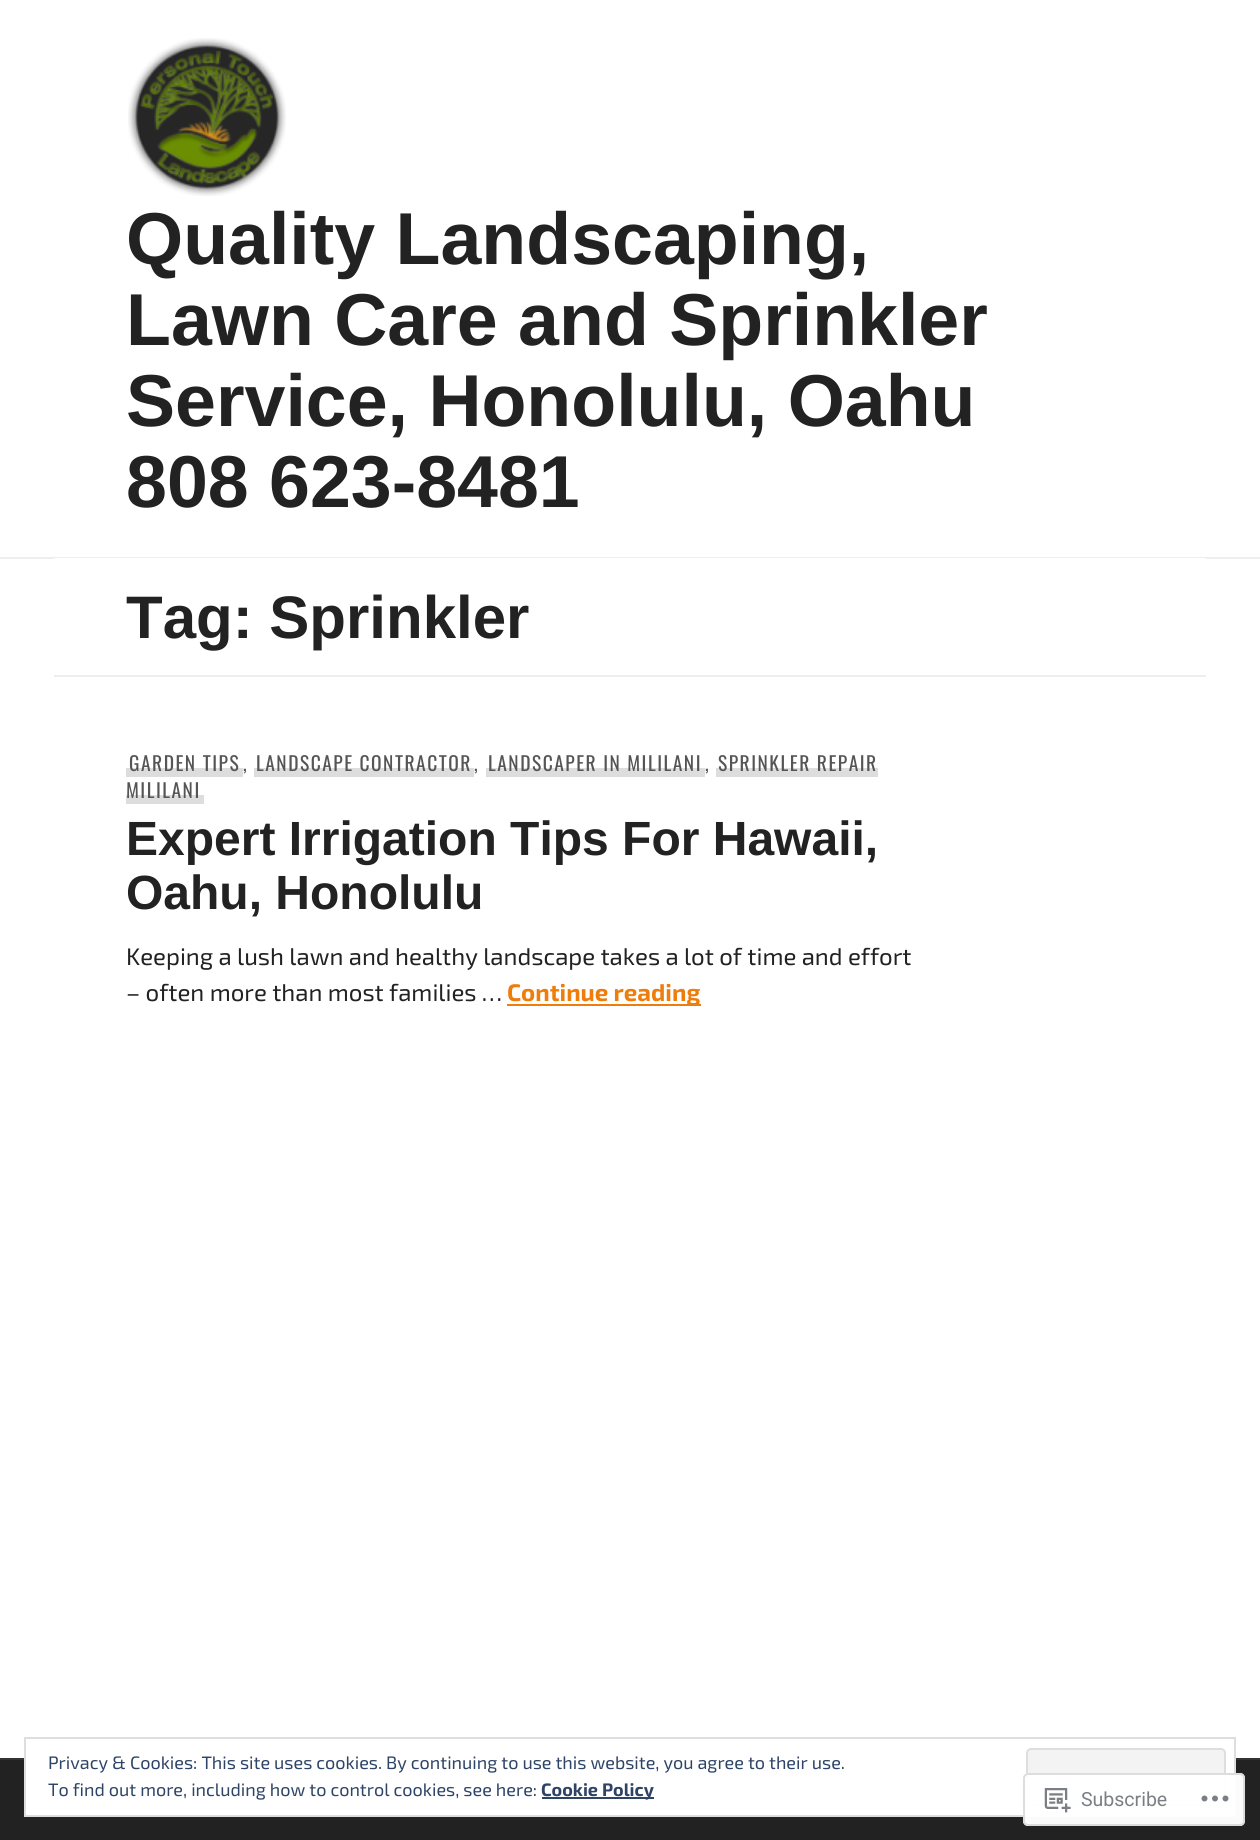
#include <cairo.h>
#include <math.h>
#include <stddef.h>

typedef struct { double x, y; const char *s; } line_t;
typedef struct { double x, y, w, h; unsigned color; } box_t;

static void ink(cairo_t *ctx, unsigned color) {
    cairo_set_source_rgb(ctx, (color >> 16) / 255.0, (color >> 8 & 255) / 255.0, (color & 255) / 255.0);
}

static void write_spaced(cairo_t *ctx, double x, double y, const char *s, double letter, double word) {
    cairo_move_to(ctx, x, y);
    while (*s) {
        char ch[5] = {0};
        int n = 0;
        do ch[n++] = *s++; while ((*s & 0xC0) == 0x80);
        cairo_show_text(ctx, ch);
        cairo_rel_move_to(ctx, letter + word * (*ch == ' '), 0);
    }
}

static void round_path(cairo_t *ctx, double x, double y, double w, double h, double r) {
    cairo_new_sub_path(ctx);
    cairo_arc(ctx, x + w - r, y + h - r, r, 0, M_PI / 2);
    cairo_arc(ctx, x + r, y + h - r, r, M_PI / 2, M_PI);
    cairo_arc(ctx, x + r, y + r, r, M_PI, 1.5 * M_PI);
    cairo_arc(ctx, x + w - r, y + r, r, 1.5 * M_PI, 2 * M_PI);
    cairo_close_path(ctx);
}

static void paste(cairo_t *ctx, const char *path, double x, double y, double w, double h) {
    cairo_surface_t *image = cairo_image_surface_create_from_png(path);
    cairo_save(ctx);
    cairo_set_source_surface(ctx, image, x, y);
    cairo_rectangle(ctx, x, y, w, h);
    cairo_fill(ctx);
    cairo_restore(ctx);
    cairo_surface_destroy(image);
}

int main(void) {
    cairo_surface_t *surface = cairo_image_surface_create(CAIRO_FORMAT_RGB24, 1260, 1840);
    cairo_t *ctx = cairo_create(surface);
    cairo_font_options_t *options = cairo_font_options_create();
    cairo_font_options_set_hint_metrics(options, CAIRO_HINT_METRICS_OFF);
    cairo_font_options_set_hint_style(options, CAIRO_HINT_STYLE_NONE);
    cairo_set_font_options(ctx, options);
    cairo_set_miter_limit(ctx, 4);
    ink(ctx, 0xFFFFFF);
    cairo_paint(ctx);
    ink(ctx, 0xEEEEEE);
    cairo_rectangle(ctx, 0, 557, 1260, 2);
    cairo_fill(ctx);
    paste(ctx, "media/1.png", 128, 38, 158, 158);
    cairo_select_font_face(ctx, "Arimo", CAIRO_FONT_SLANT_NORMAL, CAIRO_FONT_WEIGHT_BOLD);
    cairo_set_font_size(ctx, 73.5);
    ink(ctx, 0x222222);
    {
        static const line_t items[] = {
            {126, 264, "Quality Landscaping,"},
            {126, 345, "Lawn Care and Sprinkler"},
            {126, 426, "Service, Honolulu, Oahu"},
            {126, 507, "808 623-8481"},
        };
        for (size_t i = 0; i < sizeof items / sizeof *items; i++) {
            cairo_move_to(ctx, items[i].x, items[i].y);
            cairo_show_text(ctx, items[i].s);
        }
    }
    ink(ctx, 0xFFFFFF);
    cairo_rectangle(ctx, 54, 558, 1152, 1);
    cairo_fill(ctx);
    ink(ctx, 0xEEEEEE);
    cairo_rectangle(ctx, 54, 675, 1152, 2);
    cairo_fill(ctx);
    cairo_set_font_size(ctx, 60);
    ink(ctx, 0x222222);
    cairo_move_to(ctx, 126, 638);
    cairo_show_text(ctx, "Tag: Sprinkler");
    ink(ctx, 0xDDDDDD);
    cairo_rectangle(ctx, 126, 768, 117, 9);
    cairo_fill(ctx);
    cairo_select_font_face(ctx, "Oswald", CAIRO_FONT_SLANT_NORMAL, CAIRO_FONT_WEIGHT_NORMAL);
    cairo_set_font_size(ctx, 19.5);
    ink(ctx, 0x555555);
    write_spaced(ctx, 129, 771, "GARDEN TIPS", 1.5, 0);
    write_spaced(ctx, 243, 771, ",", 1.5, 0);
    ink(ctx, 0xDDDDDD);
    cairo_rectangle(ctx, 254, 768, 220, 9);
    cairo_fill(ctx);
    ink(ctx, 0x555555);
    write_spaced(ctx, 256, 771, "LANDSCAPE CONTRACTOR", 1.5, 0);
    write_spaced(ctx, 474, 771, ",", 1.5, 0);
    ink(ctx, 0xDDDDDD);
    cairo_rectangle(ctx, 486, 768, 219, 9);
    cairo_fill(ctx);
    ink(ctx, 0x555555);
    write_spaced(ctx, 488, 771, "LANDSCAPER IN MILILANI", 1.5, 0);
    write_spaced(ctx, 705, 771, ",", 1.5, 0);
    ink(ctx, 0xDDDDDD);
    cairo_rectangle(ctx, 716, 768, 162, 9);
    cairo_fill(ctx);
    ink(ctx, 0x555555);
    write_spaced(ctx, 718, 771, "SPRINKLER REPAIR", 1.5, 0);
    ink(ctx, 0xDDDDDD);
    cairo_rectangle(ctx, 126, 795, 78, 9);
    cairo_fill(ctx);
    ink(ctx, 0x555555);
    write_spaced(ctx, 126, 798, "MILILANI", 1.5, 0);
    cairo_select_font_face(ctx, "Arimo", CAIRO_FONT_SLANT_NORMAL, CAIRO_FONT_WEIGHT_BOLD);
    cairo_set_font_size(ctx, 48);
    ink(ctx, 0x222222);
    cairo_move_to(ctx, 126, 855);
    cairo_show_text(ctx, "Expert Irrigation Tips For Hawaii,");
    cairo_move_to(ctx, 126, 909);
    cairo_show_text(ctx, "Oahu, Honolulu");
    cairo_select_font_face(ctx, "Exo 2", CAIRO_FONT_SLANT_NORMAL, CAIRO_FONT_WEIGHT_NORMAL);
    cairo_set_font_size(ctx, 24);
    cairo_move_to(ctx, 126, 965);
    cairo_show_text(ctx, "Keeping a lush lawn and healthy landscape takes a lot of time and effort");
    cairo_move_to(ctx, 126, 1001);
    cairo_show_text(ctx, "– often more than most families …");
    ink(ctx, 0xEF7D0B);
    cairo_rectangle(ctx, 507, 1004, 194, 2);
    cairo_fill(ctx);
    cairo_select_font_face(ctx, "Exo 2", CAIRO_FONT_SLANT_NORMAL, CAIRO_FONT_WEIGHT_BOLD);
    cairo_move_to(ctx, 507, 1001);
    cairo_show_text(ctx, "Continue reading");
    {
        static const box_t items[] = {
            {0, 1760, 1260, 80, 0x222222},
            {0, 1758, 1260, 2, 0x333333},
            {26, 1758, 1208, 57, 0xFFFFFF},
        };
        for (size_t i = 0; i < sizeof items / sizeof *items; i++) {
            ink(ctx, items[i].color);
            cairo_rectangle(ctx, items[i].x, items[i].y, items[i].w, items[i].h);
            cairo_fill(ctx);
        }
    }
    cairo_rectangle(ctx, 25, 1738, 1210, 78);
    ink(ctx, 0xDEDEDE);
    cairo_stroke(ctx);
    cairo_select_font_face(ctx, "Exo 2", CAIRO_FONT_SLANT_NORMAL, CAIRO_FONT_WEIGHT_NORMAL);
    cairo_set_font_size(ctx, 18);
    ink(ctx, 0x2E4467);
    cairo_move_to(ctx, 48, 1769);
    cairo_show_text(ctx, "Privacy & Cookies: This site uses cookies. By continuing to use this website, you agree to their use.");
    ink(ctx, 0xF3F3F3);
    round_path(ctx, 1027, 1749, 198, 56, 4);
    cairo_fill_preserve(ctx);
    ink(ctx, 0xDEDEDE);
    cairo_stroke(ctx);
    ink(ctx, 0x2E4467);
    cairo_move_to(ctx, 48, 1796);
    cairo_show_text(ctx, "To find out more, including how to control cookies, see here:");
    cairo_rectangle(ctx, 542, 1797, 112, 2);
    cairo_fill(ctx);
    cairo_select_font_face(ctx, "Exo 2", CAIRO_FONT_SLANT_NORMAL, CAIRO_FONT_WEIGHT_BOLD);
    cairo_move_to(ctx, 541, 1796);
    cairo_show_text(ctx, "Cookie Policy");
    cairo_set_source_rgba(ctx, 1, 1, 1, 0.98);
    round_path(ctx, 1023, 1773, 222, 53, 5);
    cairo_fill(ctx);
    round_path(ctx, 1024, 1774, 220, 51, 4);
    cairo_set_source_rgba(ctx, 0.863, 0.863, 0.871, 0.98);
    cairo_stroke(ctx);
    paste(ctx, "media/2.png", 1044, 1788, 27, 25);
    cairo_select_font_face(ctx, "Roboto", CAIRO_FONT_SLANT_NORMAL, CAIRO_FONT_WEIGHT_NORMAL);
    cairo_set_font_size(ctx, 19.5);
    ink(ctx, 0x7B7F84);
    cairo_move_to(ctx, 1081, 1806);
    cairo_show_text(ctx, "Subscribe");
    paste(ctx, "media/3.png", 1201, 1795, 28, 7);
    cairo_surface_write_to_png(surface, "image.png");
    cairo_font_options_destroy(options);
    cairo_destroy(ctx);
    cairo_surface_destroy(surface);
    return 0;
}
